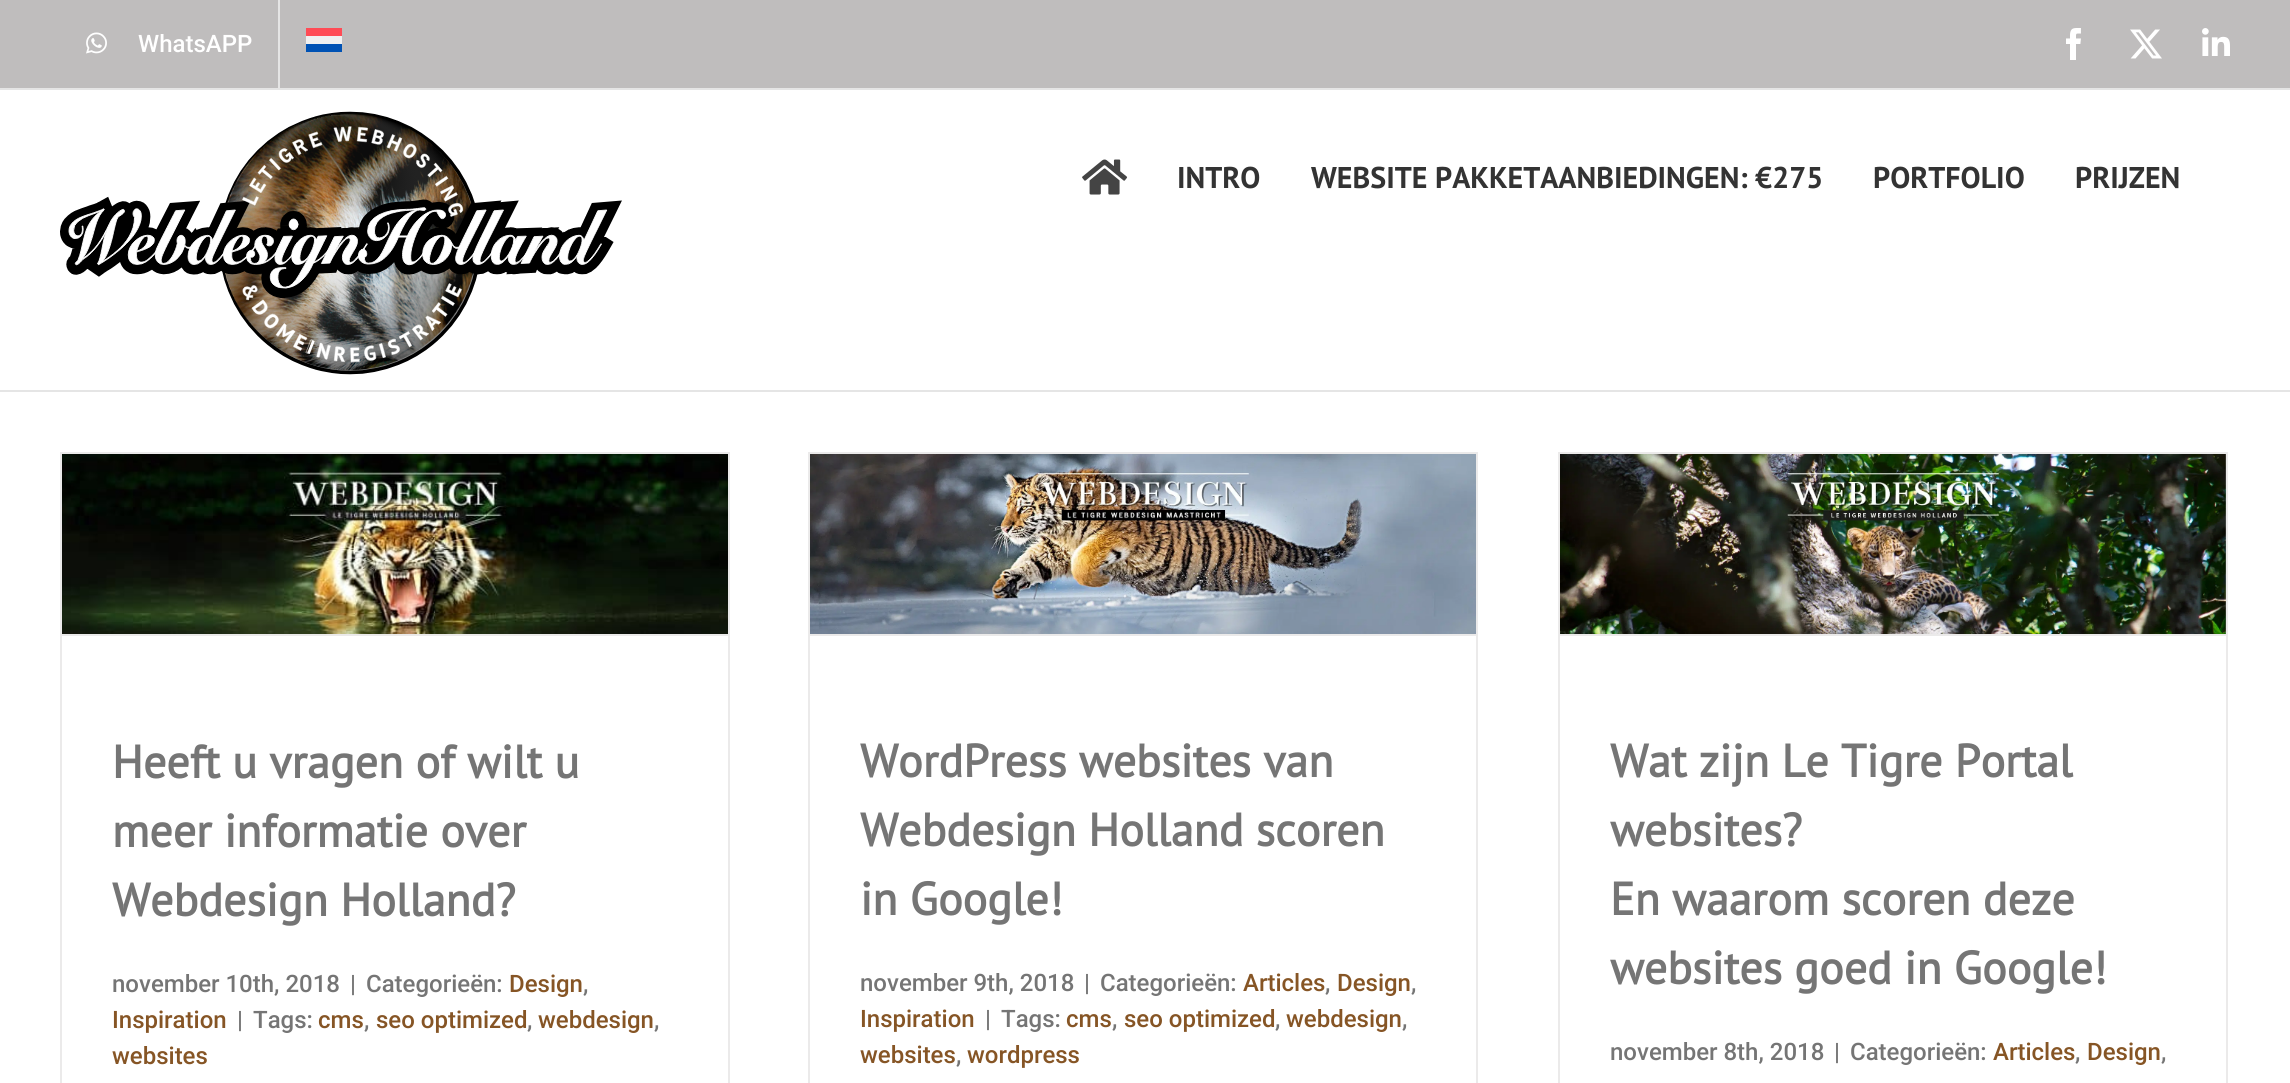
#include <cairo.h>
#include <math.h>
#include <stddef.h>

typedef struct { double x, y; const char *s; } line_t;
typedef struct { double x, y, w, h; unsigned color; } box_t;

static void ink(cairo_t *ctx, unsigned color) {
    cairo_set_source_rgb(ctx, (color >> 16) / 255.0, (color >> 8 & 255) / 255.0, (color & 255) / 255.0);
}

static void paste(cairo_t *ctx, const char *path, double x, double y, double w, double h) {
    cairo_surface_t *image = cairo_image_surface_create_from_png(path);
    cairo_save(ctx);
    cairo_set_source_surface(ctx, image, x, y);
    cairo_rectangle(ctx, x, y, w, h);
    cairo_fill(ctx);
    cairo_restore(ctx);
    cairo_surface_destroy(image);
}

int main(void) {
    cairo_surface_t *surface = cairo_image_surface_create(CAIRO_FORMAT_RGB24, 2290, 1083);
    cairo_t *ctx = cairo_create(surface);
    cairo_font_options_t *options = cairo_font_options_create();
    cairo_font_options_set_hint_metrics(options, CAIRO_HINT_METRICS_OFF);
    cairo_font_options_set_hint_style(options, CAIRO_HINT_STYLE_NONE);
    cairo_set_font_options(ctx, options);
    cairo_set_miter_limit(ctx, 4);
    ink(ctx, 0xFFFFFF);
    cairo_paint(ctx);
    ink(ctx, 0xBFBDBD);
    cairo_rectangle(ctx, 0, 0, 2290, 88);
    cairo_fill(ctx);
    ink(ctx, 0xE5E5E5);
    cairo_rectangle(ctx, 0, 88, 2290, 2);
    cairo_fill(ctx);
    paste(ctx, "media/1.png", 86, 32, 21, 22);
    cairo_select_font_face(ctx, "Roboto Medium", CAIRO_FONT_SLANT_NORMAL, CAIRO_FONT_WEIGHT_NORMAL);
    cairo_set_font_size(ctx, 24);
    ink(ctx, 0xFFFFFF);
    cairo_move_to(ctx, 138, 52);
    cairo_show_text(ctx, "WhatsAPP");
    {
        static const box_t items[] = {
            {278, 0, 2, 88, 0xE5E5E5},
            {306, 28, 36, 8, 0xFF4B55},
            {306, 36, 36, 8, 0xF0F0F0},
            {306, 44, 36, 8, 0x0052B4},
        };
        for (size_t i = 0; i < sizeof items / sizeof *items; i++) {
            ink(ctx, items[i].color);
            cairo_rectangle(ctx, items[i].x, items[i].y, items[i].w, items[i].h);
            cairo_fill(ctx);
        }
    }
    paste(ctx, "media/2.png", 2066, 28, 15, 32);
    paste(ctx, "media/3.png", 2130, 29, 32, 30);
    paste(ctx, "media/4.png", 2202, 28, 28, 28);
    ink(ctx, 0xE5E5E5);
    cairo_rectangle(ctx, 0, 390, 2290, 2);
    cairo_fill(ctx);
    paste(ctx, "media/5.png", 60, 111, 562, 264);
    paste(ctx, "media/6.png", 1082, 159, 46, 36);
    cairo_select_font_face(ctx, "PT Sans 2", CAIRO_FONT_SLANT_NORMAL, CAIRO_FONT_WEIGHT_BOLD);
    cairo_set_font_size(ctx, 30);
    ink(ctx, 0x333333);
    {
        static const line_t items[] = {
            {1177, 188, "INTRO"},
            {1311, 188, "WEBSITE PAKKETAANBIEDINGEN: €275"},
            {1873, 188, "PORTFOLIO"},
            {2075, 188, "PRIJZEN"},
        };
        for (size_t i = 0; i < sizeof items / sizeof *items; i++) {
            cairo_move_to(ctx, items[i].x, items[i].y);
            cairo_show_text(ctx, items[i].s);
        }
    }
    {
        static const box_t items[] = {
            {60, 452, 670, 2, 0xEBEAEA},
            {728, 452, 2, 631, 0xEBEAEA},
            {60, 452, 2, 631, 0xEBEAEA},
            {62, 634, 666, 2, 0xEBEAEA},
        };
        for (size_t i = 0; i < sizeof items / sizeof *items; i++) {
            ink(ctx, items[i].color);
            cairo_rectangle(ctx, items[i].x, items[i].y, items[i].w, items[i].h);
            cairo_fill(ctx);
        }
    }
    paste(ctx, "media/7.png", 62, 454, 666, 180);
    cairo_select_font_face(ctx, "PT Sans", CAIRO_FONT_SLANT_NORMAL, CAIRO_FONT_WEIGHT_BOLD);
    cairo_set_font_size(ctx, 46);
    ink(ctx, 0x757575);
    {
        static const line_t items[] = {
            {112, 778, "Heeft u vragen of wilt u"},
            {112, 847, "meer informatie over"},
            {112, 916, "Webdesign Holland?"},
        };
        for (size_t i = 0; i < sizeof items / sizeof *items; i++) {
            cairo_move_to(ctx, items[i].x, items[i].y);
            cairo_show_text(ctx, items[i].s);
        }
    }
    cairo_select_font_face(ctx, "Roboto Medium", CAIRO_FONT_SLANT_NORMAL, CAIRO_FONT_WEIGHT_NORMAL);
    cairo_set_font_size(ctx, 24);
    {
        static const line_t items[] = {
            {112, 992, "november 10th, 2018"},
            {350, 992, "|"},
            {366, 992, "Categorieën:"},
        };
        for (size_t i = 0; i < sizeof items / sizeof *items; i++) {
            cairo_move_to(ctx, items[i].x, items[i].y);
            cairo_show_text(ctx, items[i].s);
        }
    }
    ink(ctx, 0x865525);
    cairo_move_to(ctx, 509, 992);
    cairo_show_text(ctx, "Design");
    ink(ctx, 0x757575);
    cairo_move_to(ctx, 583, 992);
    cairo_show_text(ctx, ",");
    ink(ctx, 0x865525);
    cairo_move_to(ctx, 112, 1028);
    cairo_show_text(ctx, "Inspiration");
    ink(ctx, 0x757575);
    cairo_move_to(ctx, 237, 1028);
    cairo_show_text(ctx, "|");
    cairo_move_to(ctx, 253, 1028);
    cairo_show_text(ctx, "Tags:");
    ink(ctx, 0x865525);
    cairo_move_to(ctx, 318, 1028);
    cairo_show_text(ctx, "cms");
    ink(ctx, 0x757575);
    cairo_move_to(ctx, 364, 1028);
    cairo_show_text(ctx, ",");
    ink(ctx, 0x865525);
    cairo_move_to(ctx, 376, 1028);
    cairo_show_text(ctx, "seo optimized");
    ink(ctx, 0x757575);
    cairo_move_to(ctx, 527, 1028);
    cairo_show_text(ctx, ",");
    ink(ctx, 0x865525);
    cairo_move_to(ctx, 538, 1028);
    cairo_show_text(ctx, "webdesign");
    ink(ctx, 0x757575);
    cairo_move_to(ctx, 654, 1028);
    cairo_show_text(ctx, ",");
    ink(ctx, 0x865525);
    cairo_move_to(ctx, 112, 1064);
    cairo_show_text(ctx, "websites");
    {
        static const box_t items[] = {
            {808, 452, 670, 2, 0xEBEAEA},
            {1476, 452, 2, 631, 0xEBEAEA},
            {808, 452, 2, 631, 0xEBEAEA},
            {810, 634, 666, 2, 0xEBEAEA},
        };
        for (size_t i = 0; i < sizeof items / sizeof *items; i++) {
            ink(ctx, items[i].color);
            cairo_rectangle(ctx, items[i].x, items[i].y, items[i].w, items[i].h);
            cairo_fill(ctx);
        }
    }
    paste(ctx, "media/8.png", 810, 454, 666, 180);
    cairo_select_font_face(ctx, "PT Sans", CAIRO_FONT_SLANT_NORMAL, CAIRO_FONT_WEIGHT_BOLD);
    cairo_set_font_size(ctx, 46);
    ink(ctx, 0x757575);
    {
        static const line_t items[] = {
            {860, 777, "WordPress websites van"},
            {860, 846, "Webdesign Holland scoren"},
            {860, 915, "in Google!"},
        };
        for (size_t i = 0; i < sizeof items / sizeof *items; i++) {
            cairo_move_to(ctx, items[i].x, items[i].y);
            cairo_show_text(ctx, items[i].s);
        }
    }
    cairo_select_font_face(ctx, "Roboto Medium", CAIRO_FONT_SLANT_NORMAL, CAIRO_FONT_WEIGHT_NORMAL);
    cairo_set_font_size(ctx, 24);
    {
        static const line_t items[] = {
            {860, 991, "november 9th, 2018"},
            {1084, 991, "|"},
            {1100, 991, "Categorieën:"},
        };
        for (size_t i = 0; i < sizeof items / sizeof *items; i++) {
            cairo_move_to(ctx, items[i].x, items[i].y);
            cairo_show_text(ctx, items[i].s);
        }
    }
    ink(ctx, 0x865525);
    cairo_move_to(ctx, 1243, 991);
    cairo_show_text(ctx, "Articles");
    ink(ctx, 0x757575);
    cairo_move_to(ctx, 1325, 991);
    cairo_show_text(ctx, ",");
    ink(ctx, 0x865525);
    cairo_move_to(ctx, 1337, 991);
    cairo_show_text(ctx, "Design");
    ink(ctx, 0x757575);
    cairo_move_to(ctx, 1411, 991);
    cairo_show_text(ctx, ",");
    ink(ctx, 0x865525);
    cairo_move_to(ctx, 860, 1027);
    cairo_show_text(ctx, "Inspiration");
    ink(ctx, 0x757575);
    cairo_move_to(ctx, 985, 1027);
    cairo_show_text(ctx, "|");
    cairo_move_to(ctx, 1001, 1027);
    cairo_show_text(ctx, "Tags:");
    ink(ctx, 0x865525);
    cairo_move_to(ctx, 1066, 1027);
    cairo_show_text(ctx, "cms");
    ink(ctx, 0x757575);
    cairo_move_to(ctx, 1112, 1027);
    cairo_show_text(ctx, ",");
    ink(ctx, 0x865525);
    cairo_move_to(ctx, 1124, 1027);
    cairo_show_text(ctx, "seo optimized");
    ink(ctx, 0x757575);
    cairo_move_to(ctx, 1275, 1027);
    cairo_show_text(ctx, ",");
    ink(ctx, 0x865525);
    cairo_move_to(ctx, 1286, 1027);
    cairo_show_text(ctx, "webdesign");
    ink(ctx, 0x757575);
    cairo_move_to(ctx, 1402, 1027);
    cairo_show_text(ctx, ",");
    ink(ctx, 0x865525);
    cairo_move_to(ctx, 860, 1063);
    cairo_show_text(ctx, "websites");
    ink(ctx, 0x757575);
    cairo_move_to(ctx, 956, 1063);
    cairo_show_text(ctx, ",");
    ink(ctx, 0x865525);
    cairo_move_to(ctx, 967, 1063);
    cairo_show_text(ctx, "wordpress");
    {
        static const box_t items[] = {
            {1558, 452, 670, 2, 0xEBEAEA},
            {2226, 452, 2, 631, 0xEBEAEA},
            {1558, 452, 2, 631, 0xEBEAEA},
            {1560, 634, 666, 2, 0xEBEAEA},
        };
        for (size_t i = 0; i < sizeof items / sizeof *items; i++) {
            ink(ctx, items[i].color);
            cairo_rectangle(ctx, items[i].x, items[i].y, items[i].w, items[i].h);
            cairo_fill(ctx);
        }
    }
    paste(ctx, "media/9.png", 1560, 454, 666, 180);
    cairo_select_font_face(ctx, "PT Sans", CAIRO_FONT_SLANT_NORMAL, CAIRO_FONT_WEIGHT_BOLD);
    cairo_set_font_size(ctx, 46);
    ink(ctx, 0x757575);
    {
        static const line_t items[] = {
            {1610, 777, "Wat zijn Le Tigre Portal"},
            {1610, 846, "websites?"},
            {1610, 915, "En waarom scoren deze"},
            {1610, 984, "websites goed in Google!"},
        };
        for (size_t i = 0; i < sizeof items / sizeof *items; i++) {
            cairo_move_to(ctx, items[i].x, items[i].y);
            cairo_show_text(ctx, items[i].s);
        }
    }
    cairo_select_font_face(ctx, "Roboto Medium", CAIRO_FONT_SLANT_NORMAL, CAIRO_FONT_WEIGHT_NORMAL);
    cairo_set_font_size(ctx, 24);
    {
        static const line_t items[] = {
            {1610, 1060, "november 8th, 2018"},
            {1834, 1060, "|"},
            {1850, 1060, "Categorieën:"},
        };
        for (size_t i = 0; i < sizeof items / sizeof *items; i++) {
            cairo_move_to(ctx, items[i].x, items[i].y);
            cairo_show_text(ctx, items[i].s);
        }
    }
    ink(ctx, 0x865525);
    cairo_move_to(ctx, 1993, 1060);
    cairo_show_text(ctx, "Articles");
    ink(ctx, 0x757575);
    cairo_move_to(ctx, 2075, 1060);
    cairo_show_text(ctx, ",");
    ink(ctx, 0x865525);
    cairo_move_to(ctx, 2087, 1060);
    cairo_show_text(ctx, "Design");
    ink(ctx, 0x757575);
    cairo_move_to(ctx, 2161, 1060);
    cairo_show_text(ctx, ",");
    cairo_surface_write_to_png(surface, "image.png");
    cairo_font_options_destroy(options);
    cairo_destroy(ctx);
    cairo_surface_destroy(surface);
    return 0;
}
